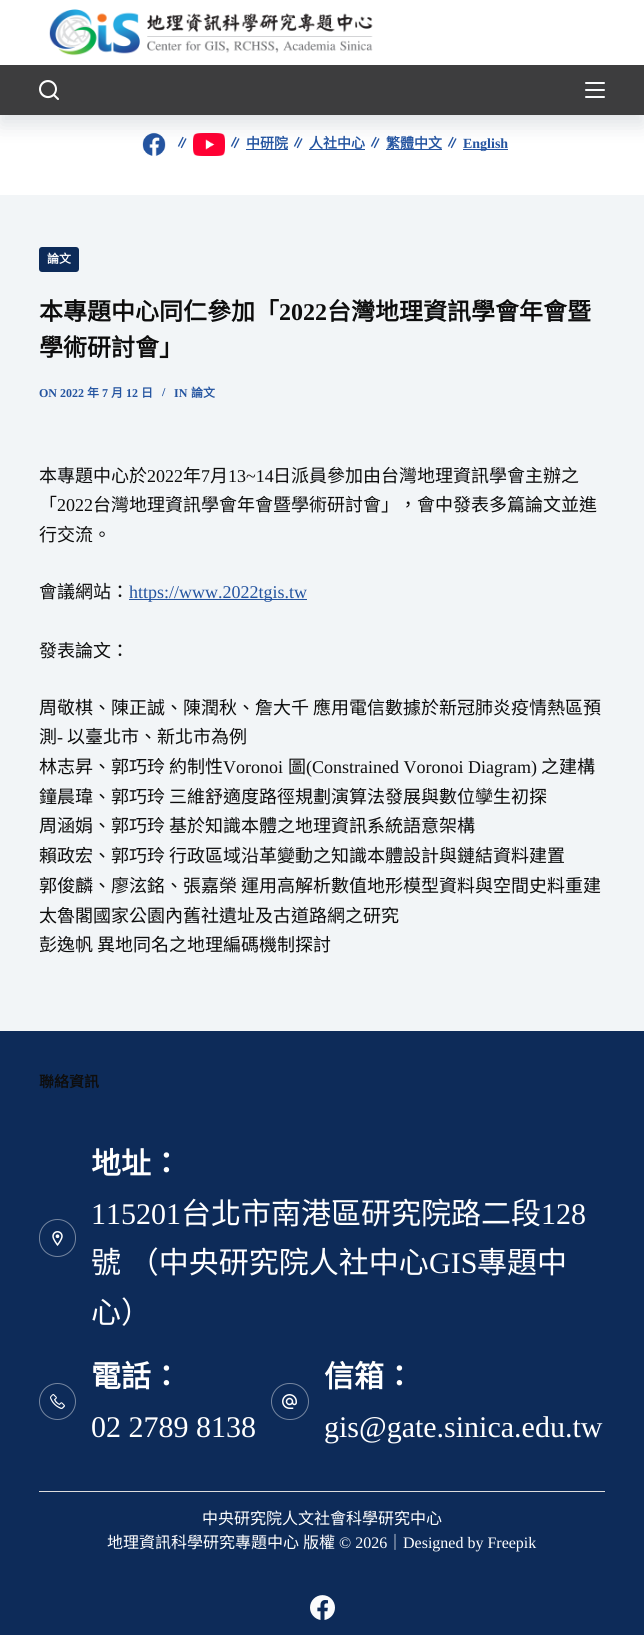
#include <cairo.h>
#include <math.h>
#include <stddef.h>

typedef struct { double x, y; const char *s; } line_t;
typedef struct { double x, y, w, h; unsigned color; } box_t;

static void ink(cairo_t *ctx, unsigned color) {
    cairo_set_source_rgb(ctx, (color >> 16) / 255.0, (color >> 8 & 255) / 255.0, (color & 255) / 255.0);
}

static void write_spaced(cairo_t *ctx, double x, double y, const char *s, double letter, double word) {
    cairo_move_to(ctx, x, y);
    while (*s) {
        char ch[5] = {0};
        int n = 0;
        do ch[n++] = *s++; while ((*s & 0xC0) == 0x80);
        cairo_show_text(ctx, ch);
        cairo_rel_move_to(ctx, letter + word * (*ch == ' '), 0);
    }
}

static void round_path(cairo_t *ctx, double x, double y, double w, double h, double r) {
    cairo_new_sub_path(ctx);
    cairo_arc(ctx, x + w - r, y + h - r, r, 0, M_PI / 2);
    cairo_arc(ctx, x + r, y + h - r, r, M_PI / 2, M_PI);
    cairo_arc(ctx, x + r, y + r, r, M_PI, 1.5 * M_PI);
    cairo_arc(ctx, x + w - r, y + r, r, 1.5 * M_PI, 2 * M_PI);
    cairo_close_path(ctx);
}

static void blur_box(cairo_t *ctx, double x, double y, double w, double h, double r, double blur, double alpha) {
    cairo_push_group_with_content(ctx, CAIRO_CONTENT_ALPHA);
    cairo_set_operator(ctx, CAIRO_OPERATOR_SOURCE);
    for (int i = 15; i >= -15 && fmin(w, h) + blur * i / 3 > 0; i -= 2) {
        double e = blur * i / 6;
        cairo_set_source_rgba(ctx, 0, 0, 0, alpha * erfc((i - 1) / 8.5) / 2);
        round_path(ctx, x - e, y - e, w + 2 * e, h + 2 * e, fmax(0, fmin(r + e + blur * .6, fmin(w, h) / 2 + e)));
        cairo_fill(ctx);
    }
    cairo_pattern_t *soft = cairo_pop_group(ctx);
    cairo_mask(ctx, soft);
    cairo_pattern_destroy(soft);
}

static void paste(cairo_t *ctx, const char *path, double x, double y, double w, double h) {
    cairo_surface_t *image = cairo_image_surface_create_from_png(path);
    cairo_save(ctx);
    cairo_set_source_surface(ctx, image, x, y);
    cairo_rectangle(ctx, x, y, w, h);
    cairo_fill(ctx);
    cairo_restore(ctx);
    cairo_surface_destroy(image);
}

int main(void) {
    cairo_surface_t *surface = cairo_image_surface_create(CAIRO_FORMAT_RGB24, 644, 1635);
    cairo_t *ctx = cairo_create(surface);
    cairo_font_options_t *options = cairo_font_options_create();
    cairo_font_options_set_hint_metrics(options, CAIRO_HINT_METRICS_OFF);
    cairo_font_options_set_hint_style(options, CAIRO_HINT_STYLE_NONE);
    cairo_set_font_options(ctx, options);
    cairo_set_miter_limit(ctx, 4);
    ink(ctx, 0xF2F5F7);
    cairo_paint(ctx);
    ink(ctx, 0xFFFFFF);
    cairo_rectangle(ctx, 0, 115, 644, 80);
    cairo_fill(ctx);
    paste(ctx, "media/3.png", 142, 132, 24, 24);
    paste(ctx, "media/4.png", 193, 133, 32, 23);
    {
        static const box_t items[] = {
            {246, 149, 42, 1, 0x2454A0},
            {309, 149, 56, 1, 0x2454A0},
            {386, 149, 56, 1, 0x2454A0},
            {463, 149, 45, 1, 0x2454A0},
        };
        for (size_t i = 0; i < sizeof items / sizeof *items; i++) {
            ink(ctx, items[i].color);
            cairo_rectangle(ctx, items[i].x, items[i].y, items[i].w, items[i].h);
            cairo_fill(ctx);
        }
    }
    ink(ctx, 0x2C3E50);
    blur_box(ctx, 0, 75, 644, 50, 0, 10, 0.15);
    ink(ctx, 0xFFFFFF);
    cairo_rectangle(ctx, 0, 0, 644, 65);
    cairo_fill(ctx);
    paste(ctx, "media/1.png", 49, 9, 324, 47);
    ink(ctx, 0x3D3D3E);
    cairo_rectangle(ctx, 0, 65, 644, 50);
    cairo_fill(ctx);
    paste(ctx, "media/2.png", 39, 80, 20, 20);
    ink(ctx, 0xFAFBFC);
    round_path(ctx, 585, 82, 20, 2, 1);
    cairo_fill(ctx);
    round_path(ctx, 585, 89, 20, 2, 1);
    cairo_fill(ctx);
    round_path(ctx, 585, 96, 20, 2, 1);
    cairo_fill(ctx);
    cairo_select_font_face(ctx, "Noto Sans CJK TC", CAIRO_FONT_SLANT_NORMAL, CAIRO_FONT_WEIGHT_BOLD);
    cairo_set_font_size(ctx, 14);
    ink(ctx, 0x2454A0);
    {
        static const line_t items[] = {
            {175, 148, "∥"},
            {228, 148, "∥"},
            {246, 148, "中研院"},
            {291, 148, "∥"},
            {309, 148, "人社中心"},
            {368, 148, "∥"},
            {386, 148, "繁體中文"},
            {445, 148, "∥"},
        };
        for (size_t i = 0; i < sizeof items / sizeof *items; i++) {
            cairo_move_to(ctx, items[i].x, items[i].y);
            cairo_show_text(ctx, items[i].s);
        }
    }
    cairo_select_font_face(ctx, "Liberation Serif", CAIRO_FONT_SLANT_NORMAL, CAIRO_FONT_WEIGHT_BOLD);
    cairo_move_to(ctx, 463, 148);
    cairo_show_text(ctx, "English");
    ink(ctx, 0x0D2B59);
    round_path(ctx, 39, 247, 40, 25, 3);
    cairo_fill(ctx);
    cairo_select_font_face(ctx, "Noto Sans CJK TC", CAIRO_FONT_SLANT_NORMAL, CAIRO_FONT_WEIGHT_BOLD);
    cairo_set_font_size(ctx, 12);
    ink(ctx, 0xFFFFFF);
    cairo_move_to(ctx, 47, 263);
    cairo_show_text(ctx, "論文");
    cairo_set_font_size(ctx, 24);
    ink(ctx, 0x0D0D0D);
    cairo_move_to(ctx, 39, 320);
    cairo_show_text(ctx, "本專題中心同仁參加「");
    cairo_select_font_face(ctx, "Liberation Serif", CAIRO_FONT_SLANT_NORMAL, CAIRO_FONT_WEIGHT_BOLD);
    cairo_move_to(ctx, 279, 320);
    cairo_show_text(ctx, "2022");
    cairo_select_font_face(ctx, "Noto Sans CJK TC", CAIRO_FONT_SLANT_NORMAL, CAIRO_FONT_WEIGHT_BOLD);
    cairo_move_to(ctx, 327, 320);
    cairo_show_text(ctx, "台灣地理資訊學會年會暨");
    cairo_move_to(ctx, 39, 356);
    cairo_show_text(ctx, "學術研討會」");
    cairo_select_font_face(ctx, "Liberation Serif", CAIRO_FONT_SLANT_NORMAL, CAIRO_FONT_WEIGHT_BOLD);
    cairo_set_font_size(ctx, 12);
    ink(ctx, 0x2454A0);
    cairo_move_to(ctx, 39, 397);
    cairo_show_text(ctx, "ON 2022");
    cairo_select_font_face(ctx, "Noto Sans CJK TC", CAIRO_FONT_SLANT_NORMAL, CAIRO_FONT_WEIGHT_BOLD);
    cairo_move_to(ctx, 87, 397);
    cairo_show_text(ctx, "年");
    cairo_select_font_face(ctx, "Liberation Serif", CAIRO_FONT_SLANT_NORMAL, CAIRO_FONT_WEIGHT_BOLD);
    cairo_move_to(ctx, 102, 397);
    cairo_show_text(ctx, "7");
    cairo_select_font_face(ctx, "Noto Sans CJK TC", CAIRO_FONT_SLANT_NORMAL, CAIRO_FONT_WEIGHT_BOLD);
    cairo_move_to(ctx, 111, 397);
    cairo_show_text(ctx, "月");
    cairo_select_font_face(ctx, "Liberation Serif", CAIRO_FONT_SLANT_NORMAL, CAIRO_FONT_WEIGHT_BOLD);
    cairo_move_to(ctx, 126, 397);
    cairo_show_text(ctx, "12");
    cairo_select_font_face(ctx, "Noto Sans CJK TC", CAIRO_FONT_SLANT_NORMAL, CAIRO_FONT_WEIGHT_BOLD);
    cairo_move_to(ctx, 141, 397);
    cairo_show_text(ctx, "日");
    cairo_select_font_face(ctx, "Liberation Serif", CAIRO_FONT_SLANT_NORMAL, CAIRO_FONT_WEIGHT_BOLD);
    cairo_move_to(ctx, 162, 396);
    cairo_show_text(ctx, "/");
    cairo_move_to(ctx, 174, 397);
    cairo_show_text(ctx, "IN");
    cairo_select_font_face(ctx, "Noto Sans CJK TC", CAIRO_FONT_SLANT_NORMAL, CAIRO_FONT_WEIGHT_BOLD);
    cairo_move_to(ctx, 191, 397);
    cairo_show_text(ctx, "論文");
    cairo_select_font_face(ctx, "Noto Sans CJK TC", CAIRO_FONT_SLANT_NORMAL, CAIRO_FONT_WEIGHT_NORMAL);
    cairo_set_font_size(ctx, 18);
    ink(ctx, 0x0D0D0D);
    cairo_move_to(ctx, 39, 482);
    cairo_show_text(ctx, "本專題中心於");
    cairo_select_font_face(ctx, "Liberation Serif", CAIRO_FONT_SLANT_NORMAL, CAIRO_FONT_WEIGHT_NORMAL);
    cairo_move_to(ctx, 147, 482);
    cairo_show_text(ctx, "2022");
    cairo_select_font_face(ctx, "Noto Sans CJK TC", CAIRO_FONT_SLANT_NORMAL, CAIRO_FONT_WEIGHT_NORMAL);
    cairo_move_to(ctx, 183, 482);
    cairo_show_text(ctx, "年");
    cairo_select_font_face(ctx, "Liberation Serif", CAIRO_FONT_SLANT_NORMAL, CAIRO_FONT_WEIGHT_NORMAL);
    cairo_move_to(ctx, 201, 482);
    cairo_show_text(ctx, "7");
    cairo_select_font_face(ctx, "Noto Sans CJK TC", CAIRO_FONT_SLANT_NORMAL, CAIRO_FONT_WEIGHT_NORMAL);
    cairo_move_to(ctx, 210, 482);
    cairo_show_text(ctx, "月");
    cairo_select_font_face(ctx, "Liberation Serif", CAIRO_FONT_SLANT_NORMAL, CAIRO_FONT_WEIGHT_NORMAL);
    cairo_move_to(ctx, 228, 482);
    cairo_show_text(ctx, "13~14");
    cairo_select_font_face(ctx, "Noto Sans CJK TC", CAIRO_FONT_SLANT_NORMAL, CAIRO_FONT_WEIGHT_NORMAL);
    cairo_move_to(ctx, 273, 482);
    cairo_show_text(ctx, "日派員參加由台灣地理資訊學會主辦之");
    cairo_move_to(ctx, 39, 511);
    cairo_show_text(ctx, "「");
    cairo_select_font_face(ctx, "Liberation Serif", CAIRO_FONT_SLANT_NORMAL, CAIRO_FONT_WEIGHT_NORMAL);
    cairo_move_to(ctx, 57, 511);
    cairo_show_text(ctx, "2022");
    cairo_select_font_face(ctx, "Noto Sans CJK TC", CAIRO_FONT_SLANT_NORMAL, CAIRO_FONT_WEIGHT_NORMAL);
    {
        static const line_t items[] = {
            {93, 511, "台灣地理資訊學會年會暨學術研討會」，會中發表多篇論文並進"},
            {39, 541, "行交流。"},
            {39, 598, "會議網站："},
        };
        for (size_t i = 0; i < sizeof items / sizeof *items; i++) {
            cairo_move_to(ctx, items[i].x, items[i].y);
            cairo_show_text(ctx, items[i].s);
        }
    }
    ink(ctx, 0x2454A0);
    cairo_rectangle(ctx, 129, 599, 178, 1);
    cairo_fill(ctx);
    cairo_select_font_face(ctx, "Liberation Serif", CAIRO_FONT_SLANT_NORMAL, CAIRO_FONT_WEIGHT_NORMAL);
    cairo_move_to(ctx, 129, 598);
    cairo_show_text(ctx, "https://www.2022tgis.tw");
    cairo_select_font_face(ctx, "Noto Sans CJK TC", CAIRO_FONT_SLANT_NORMAL, CAIRO_FONT_WEIGHT_NORMAL);
    ink(ctx, 0x0D0D0D);
    {
        static const line_t items[] = {
            {39, 657, "發表論文："},
            {39, 714, "周敬棋、陳正誠、陳潤秋、詹大千 應用電信數據於新冠肺炎疫情熱區預"},
            {39, 743, "測"},
        };
        for (size_t i = 0; i < sizeof items / sizeof *items; i++) {
            cairo_move_to(ctx, items[i].x, items[i].y);
            cairo_show_text(ctx, items[i].s);
        }
    }
    cairo_select_font_face(ctx, "Liberation Serif", CAIRO_FONT_SLANT_NORMAL, CAIRO_FONT_WEIGHT_NORMAL);
    cairo_move_to(ctx, 57, 743);
    cairo_show_text(ctx, "-");
    cairo_select_font_face(ctx, "Noto Sans CJK TC", CAIRO_FONT_SLANT_NORMAL, CAIRO_FONT_WEIGHT_NORMAL);
    {
        static const line_t items[] = {
            {67, 743, "以臺北市、新北市為例"},
            {39, 773, "林志昇、郭巧玲"},
            {169, 773, "約制性"},
        };
        for (size_t i = 0; i < sizeof items / sizeof *items; i++) {
            cairo_move_to(ctx, items[i].x, items[i].y);
            cairo_show_text(ctx, items[i].s);
        }
    }
    cairo_select_font_face(ctx, "Liberation Serif", CAIRO_FONT_SLANT_NORMAL, CAIRO_FONT_WEIGHT_NORMAL);
    cairo_move_to(ctx, 223, 773);
    cairo_show_text(ctx, "Voronoi");
    cairo_select_font_face(ctx, "Noto Sans CJK TC", CAIRO_FONT_SLANT_NORMAL, CAIRO_FONT_WEIGHT_NORMAL);
    cairo_move_to(ctx, 288, 773);
    cairo_show_text(ctx, "圖");
    cairo_select_font_face(ctx, "Liberation Serif", CAIRO_FONT_SLANT_NORMAL, CAIRO_FONT_WEIGHT_NORMAL);
    cairo_move_to(ctx, 306, 773);
    cairo_show_text(ctx, "(Constrained Voronoi Diagram)");
    cairo_select_font_face(ctx, "Noto Sans CJK TC", CAIRO_FONT_SLANT_NORMAL, CAIRO_FONT_WEIGHT_NORMAL);
    {
        static const line_t items[] = {
            {541, 773, "之建構"},
            {39, 803, "鐘晨瑋、郭巧玲 三維舒適度路徑規劃演算法發展與數位孿生初探"},
            {39, 832, "周涵娟、郭巧玲 基於知識本體之地理資訊系統語意架構"},
            {39, 862, "賴政宏、郭巧玲 行政區域沿革變動之知識本體設計與鏈結資料建置"},
            {39, 892, "郭俊麟、廖泫銘、張嘉榮 運用高解析數值地形模型資料與空間史料重建"},
            {39, 922, "太魯閣國家公園內舊社遺址及古道路網之研究"},
            {39, 951, "彭逸帆 異地同名之地理編碼機制探討"},
        };
        for (size_t i = 0; i < sizeof items / sizeof *items; i++) {
            cairo_move_to(ctx, items[i].x, items[i].y);
            cairo_show_text(ctx, items[i].s);
        }
    }
    ink(ctx, 0x0D2B59);
    cairo_rectangle(ctx, 0, 1031, 644, 604);
    cairo_fill(ctx);
    ink(ctx, 0xDDDDDD);
    cairo_rectangle(ctx, 39, 1491, 566, 1);
    cairo_fill(ctx);
    cairo_select_font_face(ctx, "Noto Sans CJK TC", CAIRO_FONT_SLANT_NORMAL, CAIRO_FONT_WEIGHT_BOLD);
    cairo_set_font_size(ctx, 15);
    ink(ctx, 0x0D0D0D);
    cairo_move_to(ctx, 39, 1087);
    cairo_show_text(ctx, "聯絡資訊");
    round_path(ctx, 39.5, 1219.5, 36, 37, 18);
    ink(ctx, 0x74859F);
    cairo_set_line_width(ctx, 1);
    cairo_stroke(ctx);
    paste(ctx, "media/5.png", 52, 1231, 11, 15);
    cairo_set_font_size(ctx, 30);
    ink(ctx, 0xFFFFFF);
    cairo_move_to(ctx, 91, 1174);
    cairo_show_text(ctx, "地址：");
    cairo_select_font_face(ctx, "Liberation Serif", CAIRO_FONT_SLANT_NORMAL, CAIRO_FONT_WEIGHT_NORMAL);
    cairo_move_to(ctx, 91, 1224);
    cairo_show_text(ctx, "115201");
    cairo_select_font_face(ctx, "Noto Sans CJK TC", CAIRO_FONT_SLANT_NORMAL, CAIRO_FONT_WEIGHT_NORMAL);
    cairo_move_to(ctx, 181, 1224);
    cairo_show_text(ctx, "台北市南港區研究院路二段");
    cairo_select_font_face(ctx, "Liberation Serif", CAIRO_FONT_SLANT_NORMAL, CAIRO_FONT_WEIGHT_NORMAL);
    cairo_move_to(ctx, 541, 1224);
    cairo_show_text(ctx, "128");
    cairo_select_font_face(ctx, "Noto Sans CJK TC", CAIRO_FONT_SLANT_NORMAL, CAIRO_FONT_WEIGHT_NORMAL);
    write_spaced(ctx, 91, 1273, "號 （中央研究院人社中心", 0, 1);
    cairo_select_font_face(ctx, "Liberation Serif", CAIRO_FONT_SLANT_NORMAL, CAIRO_FONT_WEIGHT_NORMAL);
    cairo_move_to(ctx, 429, 1273);
    cairo_show_text(ctx, "GIS");
    cairo_select_font_face(ctx, "Noto Sans CJK TC", CAIRO_FONT_SLANT_NORMAL, CAIRO_FONT_WEIGHT_NORMAL);
    cairo_move_to(ctx, 477, 1273);
    cairo_show_text(ctx, "專題中");
    cairo_move_to(ctx, 91, 1323);
    cairo_show_text(ctx, "心）");
    cairo_new_path(ctx);
    cairo_arc(ctx, 57.5, 1401.5, 18, 0, 2 * M_PI);
    ink(ctx, 0x74859F);
    cairo_stroke(ctx);
    paste(ctx, "media/6.png", 50, 1394, 15, 15);
    cairo_select_font_face(ctx, "Noto Sans CJK TC", CAIRO_FONT_SLANT_NORMAL, CAIRO_FONT_WEIGHT_BOLD);
    ink(ctx, 0xFFFFFF);
    cairo_move_to(ctx, 91, 1387);
    cairo_show_text(ctx, "電話：");
    cairo_select_font_face(ctx, "Liberation Serif", CAIRO_FONT_SLANT_NORMAL, CAIRO_FONT_WEIGHT_NORMAL);
    cairo_move_to(ctx, 91, 1437);
    cairo_show_text(ctx, "02 2789 8138");
    round_path(ctx, 271.5, 1383.5, 37, 36, 18);
    ink(ctx, 0x74859F);
    cairo_stroke(ctx);
    paste(ctx, "media/7.png", 282, 1394, 15, 15);
    cairo_select_font_face(ctx, "Noto Sans CJK TC", CAIRO_FONT_SLANT_NORMAL, CAIRO_FONT_WEIGHT_BOLD);
    ink(ctx, 0xFFFFFF);
    cairo_move_to(ctx, 324, 1387);
    cairo_show_text(ctx, "信箱：");
    cairo_select_font_face(ctx, "Liberation Serif", CAIRO_FONT_SLANT_NORMAL, CAIRO_FONT_WEIGHT_NORMAL);
    cairo_move_to(ctx, 324, 1437);
    cairo_show_text(ctx, "gis@gate.sinica.edu.tw");
    cairo_select_font_face(ctx, "Noto Sans CJK TC", CAIRO_FONT_SLANT_NORMAL, CAIRO_FONT_WEIGHT_NORMAL);
    cairo_set_font_size(ctx, 16);
    {
        static const line_t items[] = {
            {202, 1524, "中央研究院人文社會科學研究中心"},
            {107, 1548, "地理資訊科學研究專題中心"},
            {303, 1548, "版權"},
        };
        for (size_t i = 0; i < sizeof items / sizeof *items; i++) {
            cairo_move_to(ctx, items[i].x, items[i].y);
            cairo_show_text(ctx, items[i].s);
        }
    }
    cairo_select_font_face(ctx, "Liberation Serif", CAIRO_FONT_SLANT_NORMAL, CAIRO_FONT_WEIGHT_NORMAL);
    cairo_move_to(ctx, 339, 1548);
    cairo_show_text(ctx, "© 2026");
    cairo_select_font_face(ctx, "Noto Sans CJK TC", CAIRO_FONT_SLANT_NORMAL, CAIRO_FONT_WEIGHT_NORMAL);
    cairo_move_to(ctx, 387, 1548);
    cairo_show_text(ctx, "｜");
    cairo_select_font_face(ctx, "Liberation Serif", CAIRO_FONT_SLANT_NORMAL, CAIRO_FONT_WEIGHT_NORMAL);
    cairo_move_to(ctx, 403, 1548);
    cairo_show_text(ctx, "Designed by Freepik");
    paste(ctx, "media/8.png", 310, 1595, 25, 25);
    cairo_surface_write_to_png(surface, "image.png");
    cairo_font_options_destroy(options);
    cairo_destroy(ctx);
    cairo_surface_destroy(surface);
    return 0;
}
